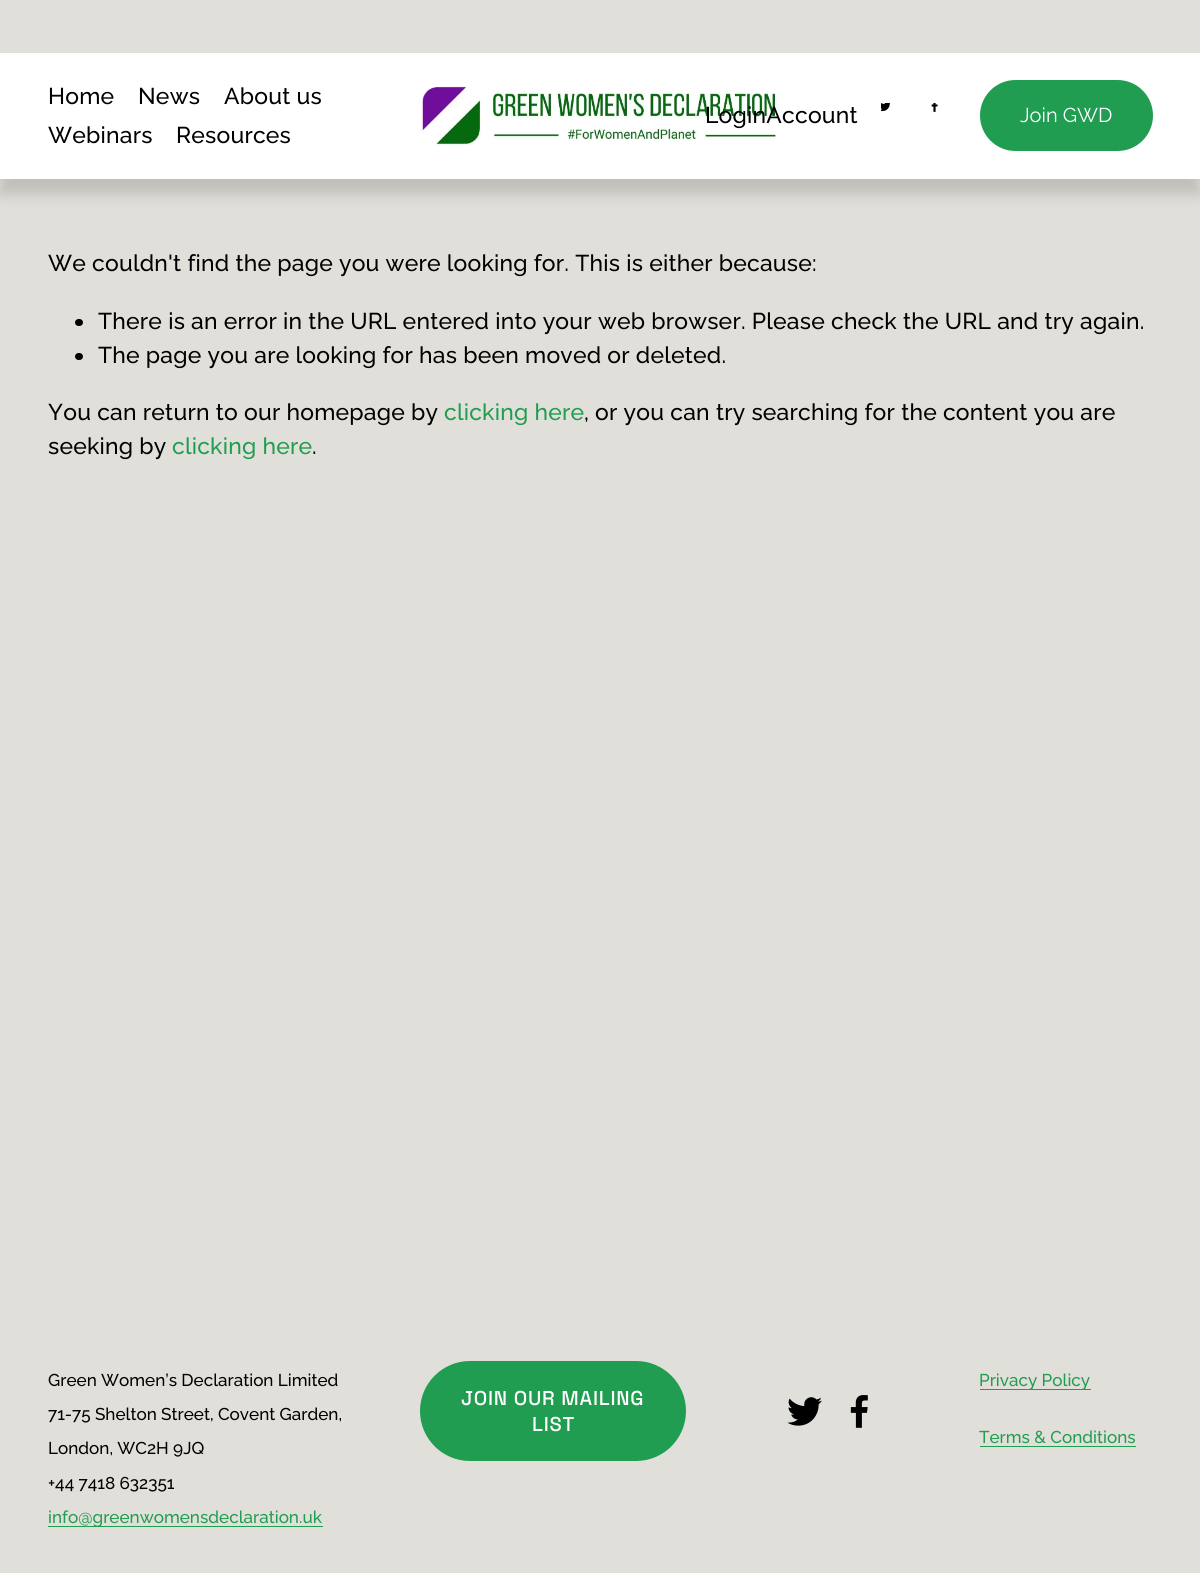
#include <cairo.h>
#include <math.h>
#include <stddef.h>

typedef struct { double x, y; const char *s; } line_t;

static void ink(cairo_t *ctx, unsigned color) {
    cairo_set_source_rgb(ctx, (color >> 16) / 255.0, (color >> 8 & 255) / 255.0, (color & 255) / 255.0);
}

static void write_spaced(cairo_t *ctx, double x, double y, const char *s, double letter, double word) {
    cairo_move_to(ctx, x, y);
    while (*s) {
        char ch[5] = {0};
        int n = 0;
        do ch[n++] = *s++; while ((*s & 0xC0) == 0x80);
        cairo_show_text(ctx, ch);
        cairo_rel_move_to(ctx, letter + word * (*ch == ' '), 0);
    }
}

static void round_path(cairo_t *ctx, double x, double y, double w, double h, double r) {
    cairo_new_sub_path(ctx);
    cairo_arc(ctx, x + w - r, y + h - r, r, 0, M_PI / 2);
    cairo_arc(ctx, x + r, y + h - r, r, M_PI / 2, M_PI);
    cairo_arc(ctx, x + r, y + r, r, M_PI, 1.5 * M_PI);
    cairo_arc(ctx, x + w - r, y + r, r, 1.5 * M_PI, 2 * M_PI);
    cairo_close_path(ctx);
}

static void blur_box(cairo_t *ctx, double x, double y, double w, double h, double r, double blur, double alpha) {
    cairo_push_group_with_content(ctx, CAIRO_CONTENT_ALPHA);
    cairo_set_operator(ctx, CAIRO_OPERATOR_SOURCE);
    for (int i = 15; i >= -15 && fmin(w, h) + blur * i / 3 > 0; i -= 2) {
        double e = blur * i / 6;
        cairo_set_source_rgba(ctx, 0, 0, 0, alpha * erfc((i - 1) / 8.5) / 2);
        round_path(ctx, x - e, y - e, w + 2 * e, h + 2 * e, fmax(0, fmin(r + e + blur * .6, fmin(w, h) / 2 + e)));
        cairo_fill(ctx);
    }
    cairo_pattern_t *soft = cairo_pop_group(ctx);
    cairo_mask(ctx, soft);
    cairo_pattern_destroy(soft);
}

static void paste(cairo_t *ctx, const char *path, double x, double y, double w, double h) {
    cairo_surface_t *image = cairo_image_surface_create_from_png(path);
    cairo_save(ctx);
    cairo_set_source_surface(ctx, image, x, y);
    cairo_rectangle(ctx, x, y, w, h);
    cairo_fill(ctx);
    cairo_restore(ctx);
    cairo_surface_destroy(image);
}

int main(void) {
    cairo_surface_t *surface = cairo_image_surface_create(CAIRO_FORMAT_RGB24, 1200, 1573);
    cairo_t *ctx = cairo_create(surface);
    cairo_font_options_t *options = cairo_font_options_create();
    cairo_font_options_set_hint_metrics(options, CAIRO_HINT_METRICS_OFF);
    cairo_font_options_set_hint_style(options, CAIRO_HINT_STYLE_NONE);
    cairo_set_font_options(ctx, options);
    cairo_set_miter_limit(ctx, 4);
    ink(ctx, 0xE1DFD9);
    cairo_paint(ctx);
    ink(ctx, 0xBFBEB8);
    blur_box(ctx, 0, 68, 1200, 126, 0, 7.5, 1);
    ink(ctx, 0xFFFFFF);
    cairo_rectangle(ctx, 0, 53, 1200, 126);
    cairo_fill(ctx);
    cairo_select_font_face(ctx, "Raleway Medium", CAIRO_FONT_SLANT_NORMAL, CAIRO_FONT_WEIGHT_NORMAL);
    cairo_set_font_size(ctx, 22.9);
    ink(ctx, 0x000000);
    {
        static const line_t items[] = {
            {48, 104, "Home"},
            {138, 104, "News"},
            {224, 104, "About us"},
            {48, 143, "Webinars"},
            {176, 143, "Resources"},
        };
        for (size_t i = 0; i < sizeof items / sizeof *items; i++) {
            write_spaced(ctx, items[i].x, items[i].y, items[i].s, 0.23, 0);
        }
    }
    paste(ctx, "media/1.png", 421, 86, 355, 60);
    write_spaced(ctx, 705, 123, "LoginAccount", 0.23, 0);
    paste(ctx, "media/2.png", 881, 103, 10, 9);
    paste(ctx, "media/3.png", 931, 103, 7, 9);
    ink(ctx, 0x209D50);
    round_path(ctx, 980, 80, 173, 71, 35.5);
    cairo_fill(ctx);
    cairo_select_font_face(ctx, "Raleway", CAIRO_FONT_SLANT_NORMAL, CAIRO_FONT_WEIGHT_NORMAL);
    cairo_set_font_size(ctx, 20);
    ink(ctx, 0xFFFFFF);
    cairo_move_to(ctx, 1020, 122);
    cairo_show_text(ctx, "Join GWD");
    cairo_select_font_face(ctx, "Raleway Medium", CAIRO_FONT_SLANT_NORMAL, CAIRO_FONT_WEIGHT_NORMAL);
    cairo_set_font_size(ctx, 22.9);
    ink(ctx, 0x000000);
    write_spaced(ctx, 48, 271, "We couldn't find the page you were looking for. This is either because:", 0.23, 0);
    round_path(ctx, 75, 319, 8, 7, 3.5);
    cairo_fill(ctx);
    write_spaced(ctx, 98, 329, "There is an error in the URL entered into your web browser. Please check the URL and try again.", 0.23, 0);
    round_path(ctx, 75, 353, 8, 7, 3.5);
    cairo_fill(ctx);
    write_spaced(ctx, 98, 363, "The page you are looking for has been moved or deleted.", 0.23, 0);
    write_spaced(ctx, 48, 420, "You can return to our homepage by", 0.23, 0);
    ink(ctx, 0x209D50);
    write_spaced(ctx, 444, 420, "clicking here", 0.23, 0);
    ink(ctx, 0x000000);
    write_spaced(ctx, 584, 420, ", or you can try searching for the content you are", 0.23, 0);
    write_spaced(ctx, 48, 454, "seeking by", 0.23, 0);
    ink(ctx, 0x209D50);
    write_spaced(ctx, 172, 454, "clicking here", 0.23, 0);
    ink(ctx, 0x000000);
    write_spaced(ctx, 312, 454, ".", 0.23, 0);
    cairo_set_font_size(ctx, 17.1);
    {
        static const line_t items[] = {
            {48, 1386, "Green Women’s Declaration Limited"},
            {48, 1420, "71-75 Shelton Street, Covent Garden,"},
            {48, 1454, "London, WC2H 9JQ"},
            {48, 1489, "+44 7418 632351"},
        };
        for (size_t i = 0; i < sizeof items / sizeof *items; i++) {
            cairo_move_to(ctx, items[i].x, items[i].y);
            cairo_show_text(ctx, items[i].s);
        }
    }
    ink(ctx, 0x209D50);
    cairo_rectangle(ctx, 48, 1526, 275, 1);
    cairo_fill(ctx);
    cairo_move_to(ctx, 48, 1523);
    cairo_show_text(ctx, "info@greenwomensdeclaration.uk");
    round_path(ctx, 420, 1361, 266, 100, 50);
    cairo_fill(ctx);
    cairo_select_font_face(ctx, "Space Grotesk Medium", CAIRO_FONT_SLANT_NORMAL, CAIRO_FONT_WEIGHT_NORMAL);
    cairo_set_font_size(ctx, 20);
    ink(ctx, 0xFFFFFF);
    write_spaced(ctx, 461, 1405, "JOIN OUR MAILING", 0.75, 0);
    write_spaced(ctx, 532, 1431, "LIST", 0.75, 0);
    paste(ctx, "media/4.png", 788, 1397, 34, 29);
    paste(ctx, "media/5.png", 850, 1395, 18, 33);
    ink(ctx, 0x209D50);
    cairo_rectangle(ctx, 980, 1389, 111, 1);
    cairo_fill(ctx);
    cairo_select_font_face(ctx, "Raleway Medium", CAIRO_FONT_SLANT_NORMAL, CAIRO_FONT_WEIGHT_NORMAL);
    cairo_set_font_size(ctx, 17.1);
    cairo_move_to(ctx, 979, 1386);
    cairo_show_text(ctx, "Privacy Policy");
    cairo_move_to(ctx, 979, 1443);
    cairo_show_text(ctx, "Terms & Conditions");
    cairo_rectangle(ctx, 980, 1446, 156, 1);
    cairo_fill(ctx);
    cairo_surface_write_to_png(surface, "image.png");
    cairo_font_options_destroy(options);
    cairo_destroy(ctx);
    cairo_surface_destroy(surface);
    return 0;
}
